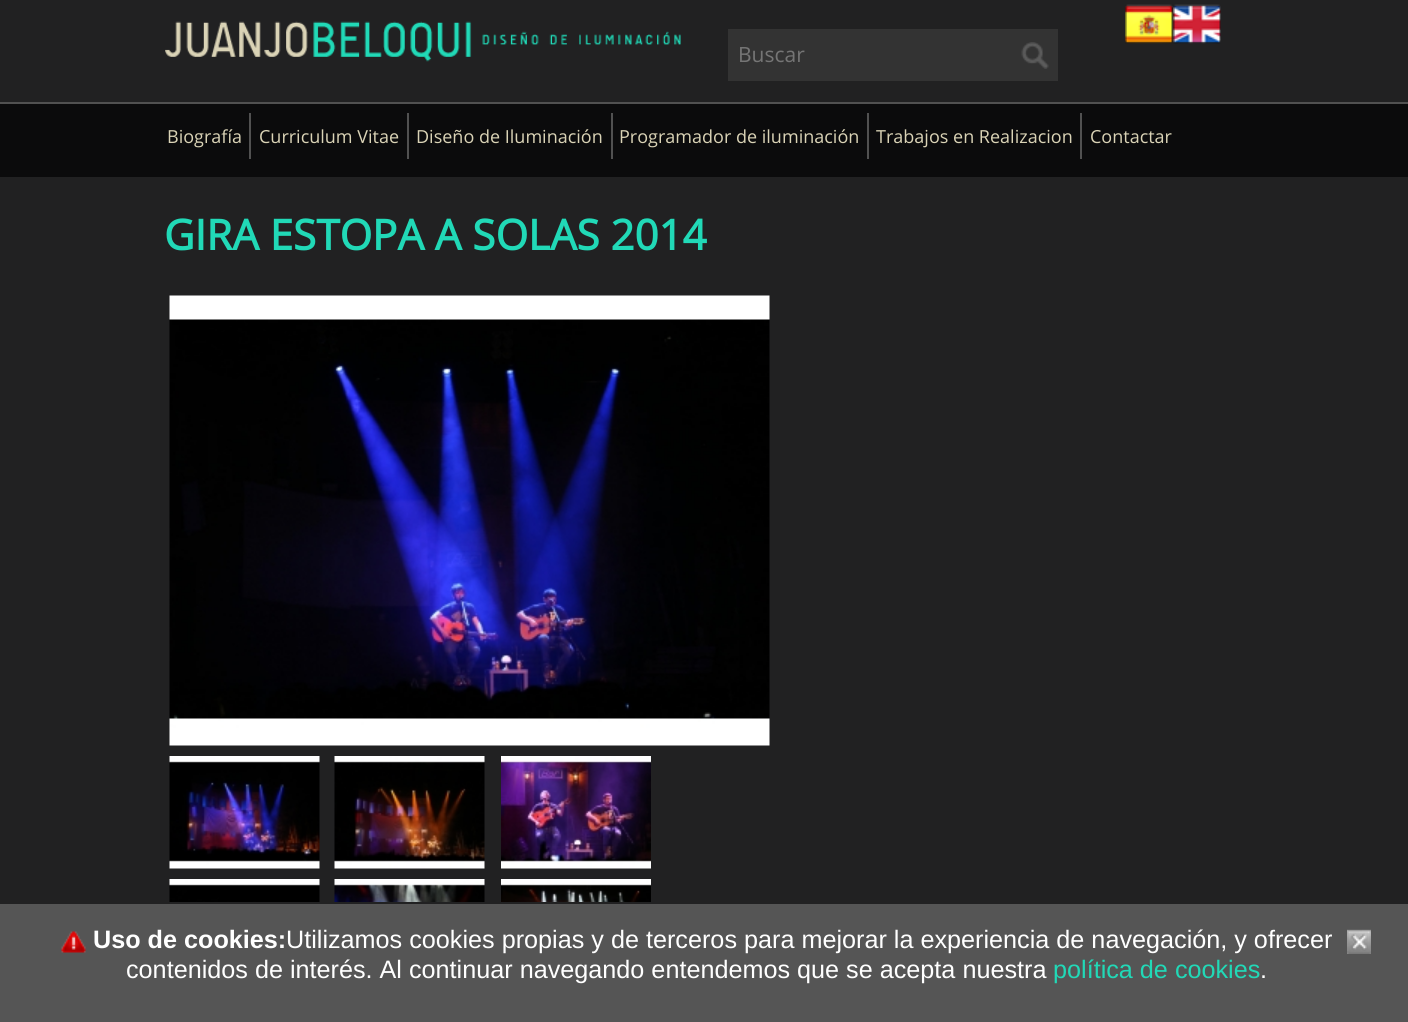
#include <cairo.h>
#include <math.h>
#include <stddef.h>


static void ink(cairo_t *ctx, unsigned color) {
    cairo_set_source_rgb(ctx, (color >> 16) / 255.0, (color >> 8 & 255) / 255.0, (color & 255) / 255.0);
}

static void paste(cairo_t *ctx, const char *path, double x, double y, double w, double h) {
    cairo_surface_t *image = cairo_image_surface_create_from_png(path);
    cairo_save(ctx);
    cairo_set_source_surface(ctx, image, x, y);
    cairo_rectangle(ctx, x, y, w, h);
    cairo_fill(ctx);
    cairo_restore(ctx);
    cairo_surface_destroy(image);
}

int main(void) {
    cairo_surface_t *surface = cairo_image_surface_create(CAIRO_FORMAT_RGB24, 1408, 1022);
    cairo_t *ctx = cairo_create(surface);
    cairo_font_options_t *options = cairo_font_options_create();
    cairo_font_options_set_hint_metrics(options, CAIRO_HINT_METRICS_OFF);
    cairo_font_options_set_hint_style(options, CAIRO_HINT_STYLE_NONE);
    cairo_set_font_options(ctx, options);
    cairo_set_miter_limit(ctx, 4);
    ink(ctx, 0x212122);
    cairo_paint(ctx);
    ink(ctx, 0x515151);
    cairo_rectangle(ctx, 0, 102, 1408, 2);
    cairo_fill(ctx);
    paste(ctx, "media/1.png", 165, 21, 516, 41);
    ink(ctx, 0x333333);
    cairo_rectangle(ctx, 728, 29, 330, 52);
    cairo_fill(ctx);
    cairo_select_font_face(ctx, "Open Sans", CAIRO_FONT_SLANT_NORMAL, CAIRO_FONT_WEIGHT_NORMAL);
    cairo_set_font_size(ctx, 21);
    ink(ctx, 0x757575);
    cairo_move_to(ctx, 738, 62);
    cairo_show_text(ctx, "Buscar");
    paste(ctx, "media/2.png", 1021, 42, 28, 27);
    paste(ctx, "media/3.png", 1125, 4, 48, 40);
    paste(ctx, "media/4.png", 1173, 4, 48, 40);
    ink(ctx, 0x0B0B0C);
    cairo_rectangle(ctx, 0, 104, 1408, 73);
    cairo_fill(ctx);
    ink(ctx, 0x515151);
    cairo_rectangle(ctx, 249, 113, 2, 46);
    cairo_fill(ctx);
    cairo_set_font_size(ctx, 18);
    ink(ctx, 0xDAD3B6);
    cairo_move_to(ctx, 167, 143);
    cairo_show_text(ctx, "Biografía");
    ink(ctx, 0x515151);
    cairo_rectangle(ctx, 407, 113, 2, 46);
    cairo_fill(ctx);
    ink(ctx, 0xDAD3B6);
    cairo_move_to(ctx, 259, 143);
    cairo_show_text(ctx, "Curriculum Vitae");
    ink(ctx, 0x515151);
    cairo_rectangle(ctx, 611, 113, 2, 46);
    cairo_fill(ctx);
    ink(ctx, 0xDAD3B6);
    cairo_move_to(ctx, 416, 143);
    cairo_show_text(ctx, "Diseño de Iluminación");
    ink(ctx, 0x515151);
    cairo_rectangle(ctx, 867, 113, 2, 46);
    cairo_fill(ctx);
    ink(ctx, 0xDAD3B6);
    cairo_move_to(ctx, 619, 143);
    cairo_show_text(ctx, "Programador de iluminación");
    ink(ctx, 0x515151);
    cairo_rectangle(ctx, 1080, 113, 2, 46);
    cairo_fill(ctx);
    ink(ctx, 0xDAD3B6);
    cairo_move_to(ctx, 876, 143);
    cairo_show_text(ctx, "Trabajos en Realizacion");
    cairo_move_to(ctx, 1090, 143);
    cairo_show_text(ctx, "Contactar");
    cairo_select_font_face(ctx, "Open Sans", CAIRO_FONT_SLANT_NORMAL, CAIRO_FONT_WEIGHT_BOLD);
    cairo_set_font_size(ctx, 42);
    ink(ctx, 0x21D9B7);
    cairo_move_to(ctx, 164, 250);
    cairo_show_text(ctx, "GIRA ESTOPA A SOLAS 2014");
    paste(ctx, "media/5.png", 169, 295, 601, 451);
    paste(ctx, "media/6.png", 169, 756, 151, 113);
    paste(ctx, "media/7.png", 334, 756, 151, 113);
    paste(ctx, "media/8.png", 501, 756, 150, 113);
    paste(ctx, "media/9.png", 169, 879, 151, 23);
    paste(ctx, "media/10.png", 334, 879, 151, 23);
    paste(ctx, "media/11.png", 501, 879, 150, 23);
    ink(ctx, 0x555555);
    cairo_rectangle(ctx, 0, 904, 1408, 118);
    cairo_fill(ctx);
    paste(ctx, "media/12.png", 61, 931, 25, 22);
    cairo_select_font_face(ctx, "Liberation Sans", CAIRO_FONT_SLANT_NORMAL, CAIRO_FONT_WEIGHT_BOLD);
    cairo_set_font_size(ctx, 25.2);
    ink(ctx, 0xFFFFFF);
    cairo_move_to(ctx, 93, 948);
    cairo_show_text(ctx, "Uso de cookies:");
    cairo_select_font_face(ctx, "Liberation Sans", CAIRO_FONT_SLANT_NORMAL, CAIRO_FONT_WEIGHT_NORMAL);
    cairo_move_to(ctx, 286, 948);
    cairo_show_text(ctx, "Utilizamos cookies propias y de terceros para mejorar la experiencia de navegación, y ofrecer");
    paste(ctx, "media/13.png", 1347, 929, 24, 25);
    cairo_move_to(ctx, 126, 978);
    cairo_show_text(ctx, "contenidos de interés. Al continuar navegando entendemos que se acepta nuestra");
    ink(ctx, 0x21D9B7);
    cairo_move_to(ctx, 1053, 978);
    cairo_show_text(ctx, "política de cookies");
    ink(ctx, 0xFFFFFF);
    cairo_move_to(ctx, 1260, 978);
    cairo_show_text(ctx, ".");
    cairo_surface_write_to_png(surface, "image.png");
    cairo_font_options_destroy(options);
    cairo_destroy(ctx);
    cairo_surface_destroy(surface);
    return 0;
}
